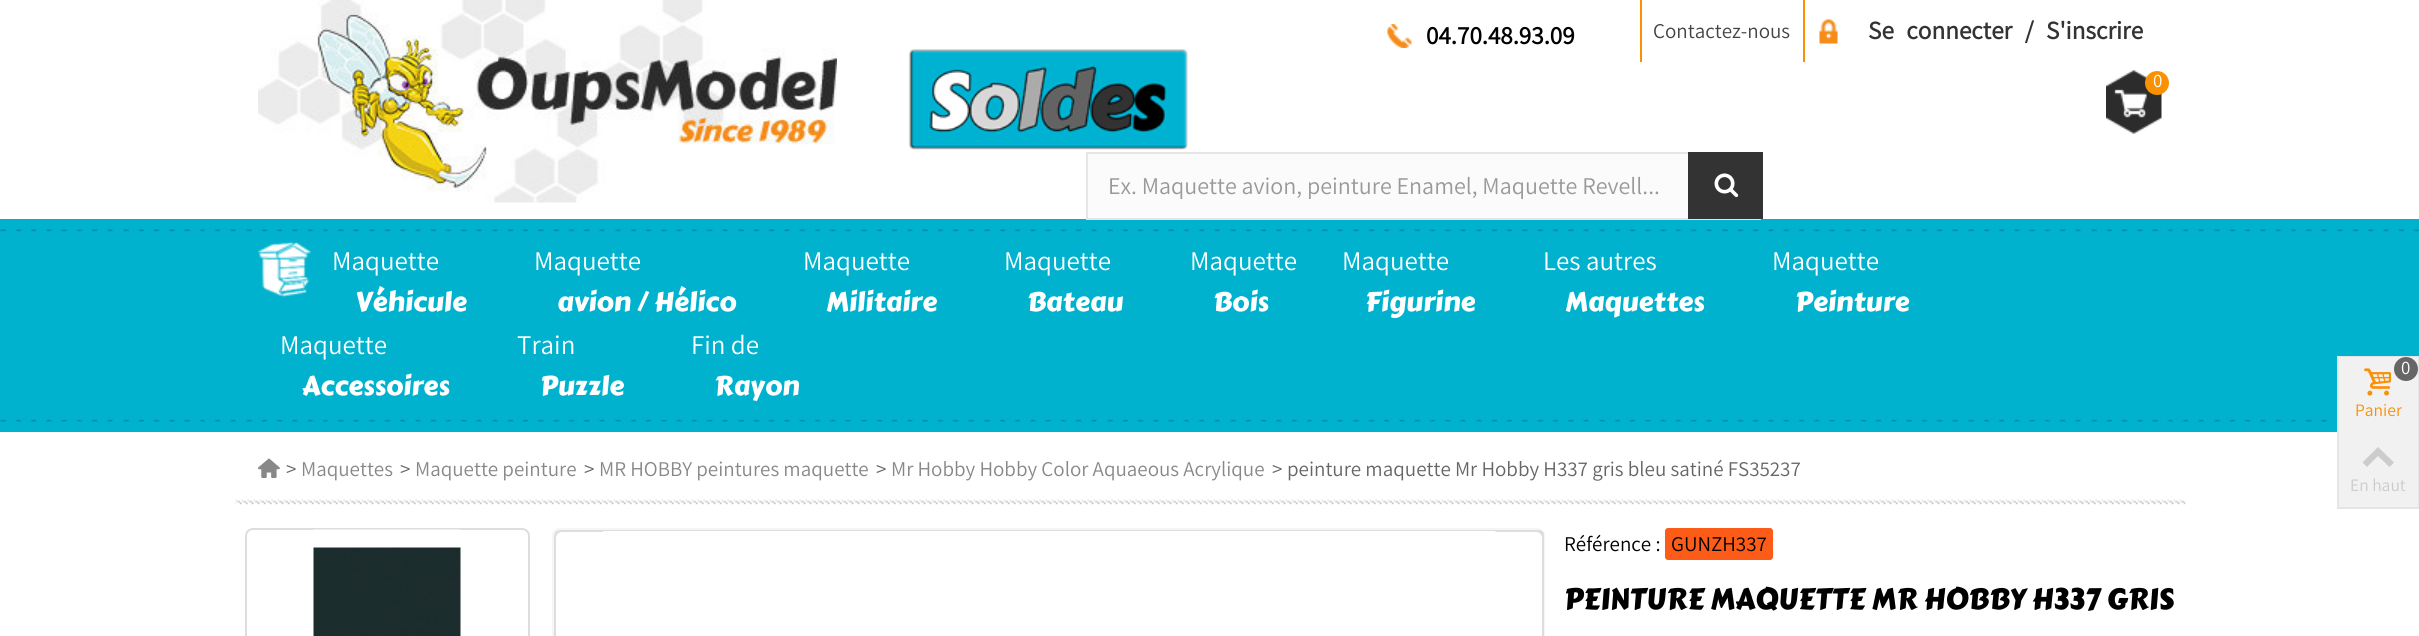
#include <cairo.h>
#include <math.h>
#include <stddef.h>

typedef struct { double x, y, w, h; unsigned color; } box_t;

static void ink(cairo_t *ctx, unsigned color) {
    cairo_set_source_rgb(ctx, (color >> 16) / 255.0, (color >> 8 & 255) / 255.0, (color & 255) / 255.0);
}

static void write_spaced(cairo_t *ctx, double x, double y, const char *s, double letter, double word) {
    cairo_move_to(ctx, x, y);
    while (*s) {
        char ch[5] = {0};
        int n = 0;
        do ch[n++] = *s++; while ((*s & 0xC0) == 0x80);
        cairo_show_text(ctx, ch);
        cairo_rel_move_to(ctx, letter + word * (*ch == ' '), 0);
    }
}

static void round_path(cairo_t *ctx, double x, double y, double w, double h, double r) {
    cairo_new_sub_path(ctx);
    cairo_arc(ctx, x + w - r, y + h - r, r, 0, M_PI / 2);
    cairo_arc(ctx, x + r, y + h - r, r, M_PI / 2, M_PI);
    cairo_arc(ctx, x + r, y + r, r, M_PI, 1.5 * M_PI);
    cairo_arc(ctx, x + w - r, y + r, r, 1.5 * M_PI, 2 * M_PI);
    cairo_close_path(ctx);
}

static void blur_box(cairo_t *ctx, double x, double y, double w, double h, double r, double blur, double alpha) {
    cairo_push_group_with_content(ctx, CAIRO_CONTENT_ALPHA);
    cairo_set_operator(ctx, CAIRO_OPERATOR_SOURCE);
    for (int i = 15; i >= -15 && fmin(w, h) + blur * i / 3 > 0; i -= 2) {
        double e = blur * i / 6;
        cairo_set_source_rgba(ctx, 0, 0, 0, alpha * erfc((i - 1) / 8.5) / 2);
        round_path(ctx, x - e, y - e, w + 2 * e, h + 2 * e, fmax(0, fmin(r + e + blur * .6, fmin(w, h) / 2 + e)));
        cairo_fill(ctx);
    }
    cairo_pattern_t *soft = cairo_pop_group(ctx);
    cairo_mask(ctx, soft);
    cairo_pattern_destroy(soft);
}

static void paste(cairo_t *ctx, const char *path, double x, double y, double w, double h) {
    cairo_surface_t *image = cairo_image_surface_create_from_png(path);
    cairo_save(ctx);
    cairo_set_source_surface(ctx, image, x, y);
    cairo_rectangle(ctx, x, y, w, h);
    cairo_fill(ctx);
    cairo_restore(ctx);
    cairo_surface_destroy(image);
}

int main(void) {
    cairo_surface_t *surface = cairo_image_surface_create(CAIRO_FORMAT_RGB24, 2419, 636);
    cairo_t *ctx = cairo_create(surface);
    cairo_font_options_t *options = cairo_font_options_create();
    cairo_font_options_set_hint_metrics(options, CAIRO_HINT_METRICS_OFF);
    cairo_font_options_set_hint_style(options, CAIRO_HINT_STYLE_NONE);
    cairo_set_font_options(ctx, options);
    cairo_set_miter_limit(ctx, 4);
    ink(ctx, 0xFFFFFF);
    cairo_paint(ctx);
    paste(ctx, "media/1.png", 258, 0, 579, 203);
    paste(ctx, "media/2.png", 1387, 24, 25, 24);
    cairo_select_font_face(ctx, "Assistant", CAIRO_FONT_SLANT_NORMAL, CAIRO_FONT_WEIGHT_BOLD);
    cairo_set_font_size(ctx, 25.25);
    ink(ctx, 0x000000);
    cairo_move_to(ctx, 1426, 44);
    cairo_show_text(ctx, "04.70.48.93.09");
    ink(ctx, 0xFB9004);
    cairo_rectangle(ctx, 1803, 0, 2, 62);
    cairo_fill(ctx);
    cairo_rectangle(ctx, 1640, 0, 2, 62);
    cairo_fill(ctx);
    cairo_select_font_face(ctx, "Assistant", CAIRO_FONT_SLANT_NORMAL, CAIRO_FONT_WEIGHT_NORMAL);
    cairo_set_font_size(ctx, 21);
    ink(ctx, 0x444444);
    cairo_move_to(ctx, 1653, 38);
    cairo_show_text(ctx, "Contactez-nous");
    paste(ctx, "media/3.png", 1819, 19, 19, 25);
    cairo_select_font_face(ctx, "Assistant", CAIRO_FONT_SLANT_NORMAL, CAIRO_FONT_WEIGHT_BOLD);
    cairo_set_font_size(ctx, 25.25);
    ink(ctx, 0x333333);
    write_spaced(ctx, 1868, 39, "Se connecter / S'inscrire", 0, 7.5);
    paste(ctx, "media/4.png", 908, 49, 280, 101);
    paste(ctx, "media/5.png", 2106, 70, 56, 64);
    ink(ctx, 0xFA9200);
    cairo_arc(ctx, 2157, 83, 12, 0, 2 * M_PI);
    cairo_fill(ctx);
    cairo_select_font_face(ctx, "Assistant", CAIRO_FONT_SLANT_NORMAL, CAIRO_FONT_WEIGHT_NORMAL);
    cairo_set_font_size(ctx, 19);
    ink(ctx, 0xFFFFFF);
    cairo_move_to(ctx, 2153, 87);
    cairo_show_text(ctx, "0");
    {
        static const box_t items[] = {
            {1088, 154, 600, 64, 0xFBFBFB},
            {1086, 152, 602, 2, 0xE5E5E5},
            {0, 219, 2419, 213, 0x00B2CE},
            {1086, 218, 675, 2, 0xE5E5E5},
            {1086, 152, 2, 67, 0xE5E5E5},
        };
        for (size_t i = 0; i < sizeof items / sizeof *items; i++) {
            ink(ctx, items[i].color);
            cairo_rectangle(ctx, items[i].x, items[i].y, items[i].w, items[i].h);
            cairo_fill(ctx);
        }
    }
    cairo_set_font_size(ctx, 24);
    ink(ctx, 0x999999);
    cairo_move_to(ctx, 1108, 194);
    cairo_show_text(ctx, "Ex. Maquette avion, peinture Enamel, Maquette Revell...");
    ink(ctx, 0x333333);
    cairo_rectangle(ctx, 1688, 152, 75, 67);
    cairo_fill(ctx);
    paste(ctx, "media/6.png", 1714, 173, 25, 25);
    paste(ctx, "media/7.png", 0, 229, 2419, 3);
    paste(ctx, "media/8.png", 258, 241, 53, 57);
    cairo_set_font_size(ctx, 27);
    ink(ctx, 0xFFFFFF);
    cairo_move_to(ctx, 332, 270);
    cairo_show_text(ctx, "Maquette");
    cairo_select_font_face(ctx, "Carter One", CAIRO_FONT_SLANT_NORMAL, CAIRO_FONT_WEIGHT_NORMAL);
    cairo_move_to(ctx, 355, 311);
    cairo_show_text(ctx, "Véhicule");
    cairo_select_font_face(ctx, "Assistant", CAIRO_FONT_SLANT_NORMAL, CAIRO_FONT_WEIGHT_NORMAL);
    cairo_move_to(ctx, 534, 270);
    cairo_show_text(ctx, "Maquette");
    cairo_select_font_face(ctx, "Carter One", CAIRO_FONT_SLANT_NORMAL, CAIRO_FONT_WEIGHT_NORMAL);
    cairo_move_to(ctx, 557, 311);
    cairo_show_text(ctx, "avion / Hélico");
    cairo_select_font_face(ctx, "Assistant", CAIRO_FONT_SLANT_NORMAL, CAIRO_FONT_WEIGHT_NORMAL);
    cairo_move_to(ctx, 803, 270);
    cairo_show_text(ctx, "Maquette");
    cairo_select_font_face(ctx, "Carter One", CAIRO_FONT_SLANT_NORMAL, CAIRO_FONT_WEIGHT_NORMAL);
    cairo_move_to(ctx, 826, 311);
    cairo_show_text(ctx, "Militaire");
    cairo_select_font_face(ctx, "Assistant", CAIRO_FONT_SLANT_NORMAL, CAIRO_FONT_WEIGHT_NORMAL);
    cairo_move_to(ctx, 1004, 270);
    cairo_show_text(ctx, "Maquette");
    cairo_select_font_face(ctx, "Carter One", CAIRO_FONT_SLANT_NORMAL, CAIRO_FONT_WEIGHT_NORMAL);
    cairo_move_to(ctx, 1027, 311);
    cairo_show_text(ctx, "Bateau");
    cairo_select_font_face(ctx, "Assistant", CAIRO_FONT_SLANT_NORMAL, CAIRO_FONT_WEIGHT_NORMAL);
    cairo_move_to(ctx, 1190, 270);
    cairo_show_text(ctx, "Maquette");
    cairo_select_font_face(ctx, "Carter One", CAIRO_FONT_SLANT_NORMAL, CAIRO_FONT_WEIGHT_NORMAL);
    cairo_move_to(ctx, 1213, 311);
    cairo_show_text(ctx, "Bois");
    cairo_select_font_face(ctx, "Assistant", CAIRO_FONT_SLANT_NORMAL, CAIRO_FONT_WEIGHT_NORMAL);
    cairo_move_to(ctx, 1342, 270);
    cairo_show_text(ctx, "Maquette");
    cairo_select_font_face(ctx, "Carter One", CAIRO_FONT_SLANT_NORMAL, CAIRO_FONT_WEIGHT_NORMAL);
    cairo_move_to(ctx, 1365, 311);
    cairo_show_text(ctx, "Figurine");
    cairo_select_font_face(ctx, "Assistant", CAIRO_FONT_SLANT_NORMAL, CAIRO_FONT_WEIGHT_NORMAL);
    cairo_move_to(ctx, 1543, 270);
    cairo_show_text(ctx, "Les autres");
    cairo_select_font_face(ctx, "Carter One", CAIRO_FONT_SLANT_NORMAL, CAIRO_FONT_WEIGHT_NORMAL);
    cairo_move_to(ctx, 1565, 311);
    cairo_show_text(ctx, "Maquettes");
    cairo_select_font_face(ctx, "Assistant", CAIRO_FONT_SLANT_NORMAL, CAIRO_FONT_WEIGHT_NORMAL);
    cairo_move_to(ctx, 1772, 270);
    cairo_show_text(ctx, "Maquette");
    cairo_select_font_face(ctx, "Carter One", CAIRO_FONT_SLANT_NORMAL, CAIRO_FONT_WEIGHT_NORMAL);
    cairo_move_to(ctx, 1795, 311);
    cairo_show_text(ctx, "Peinture");
    cairo_select_font_face(ctx, "Assistant", CAIRO_FONT_SLANT_NORMAL, CAIRO_FONT_WEIGHT_NORMAL);
    cairo_move_to(ctx, 280, 354);
    cairo_show_text(ctx, "Maquette");
    cairo_select_font_face(ctx, "Carter One", CAIRO_FONT_SLANT_NORMAL, CAIRO_FONT_WEIGHT_NORMAL);
    cairo_move_to(ctx, 302, 395);
    cairo_show_text(ctx, "Accessoires");
    cairo_select_font_face(ctx, "Assistant", CAIRO_FONT_SLANT_NORMAL, CAIRO_FONT_WEIGHT_NORMAL);
    cairo_move_to(ctx, 517, 354);
    cairo_show_text(ctx, "Train");
    cairo_select_font_face(ctx, "Carter One", CAIRO_FONT_SLANT_NORMAL, CAIRO_FONT_WEIGHT_NORMAL);
    cairo_move_to(ctx, 540, 395);
    cairo_show_text(ctx, "Puzzle");
    cairo_select_font_face(ctx, "Assistant", CAIRO_FONT_SLANT_NORMAL, CAIRO_FONT_WEIGHT_NORMAL);
    cairo_move_to(ctx, 691, 354);
    cairo_show_text(ctx, "Fin de");
    cairo_select_font_face(ctx, "Carter One", CAIRO_FONT_SLANT_NORMAL, CAIRO_FONT_WEIGHT_NORMAL);
    cairo_move_to(ctx, 714, 395);
    cairo_show_text(ctx, "Rayon");
    paste(ctx, "media/9.png", 0, 419, 2327, 3);
    paste(ctx, "media/10.png", 235, 499, 1951, 6);
    paste(ctx, "media/11.png", 258, 458, 22, 20);
    cairo_select_font_face(ctx, "Assistant", CAIRO_FONT_SLANT_NORMAL, CAIRO_FONT_WEIGHT_NORMAL);
    cairo_set_font_size(ctx, 21);
    ink(ctx, 0x666666);
    cairo_move_to(ctx, 286, 476);
    cairo_show_text(ctx, ">");
    ink(ctx, 0x888888);
    cairo_move_to(ctx, 301, 476);
    cairo_show_text(ctx, "Maquettes");
    ink(ctx, 0x666666);
    cairo_move_to(ctx, 400, 476);
    cairo_show_text(ctx, ">");
    ink(ctx, 0x888888);
    cairo_move_to(ctx, 415, 476);
    cairo_show_text(ctx, "Maquette peinture");
    ink(ctx, 0x666666);
    cairo_move_to(ctx, 584, 476);
    cairo_show_text(ctx, ">");
    ink(ctx, 0x888888);
    cairo_move_to(ctx, 599, 476);
    cairo_show_text(ctx, "MR HOBBY peintures maquette");
    ink(ctx, 0x666666);
    cairo_move_to(ctx, 876, 476);
    cairo_show_text(ctx, ">");
    ink(ctx, 0x888888);
    cairo_move_to(ctx, 891, 476);
    cairo_show_text(ctx, "Mr Hobby Hobby Color Aquaeous Acrylique");
    ink(ctx, 0x666666);
    cairo_move_to(ctx, 1272, 476);
    cairo_show_text(ctx, ">");
    cairo_move_to(ctx, 1287, 476);
    cairo_show_text(ctx, "peinture maquette Mr Hobby H337 gris bleu satiné FS35237");
    round_path(ctx, 246, 529, 283, 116, 7);
    ink(ctx, 0xDDDDDD);
    cairo_stroke(ctx);
    paste(ctx, "media/12.png", 313, 529, 148, 107);
    round_path(ctx, 553, 529, 991, 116, 7);
    ink(ctx, 0xF5F5F5);
    cairo_stroke(ctx);
    cairo_save(ctx);
    round_path(ctx, 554, 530, 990, 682, 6);
    cairo_clip(ctx);
    cairo_set_fill_rule(ctx, CAIRO_FILL_RULE_EVEN_ODD);
    cairo_new_path(ctx);
    cairo_move_to(ctx, 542, 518);
    cairo_line_to(ctx, 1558, 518);
    cairo_line_to(ctx, 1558, 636);
    cairo_line_to(ctx, 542, 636);
    cairo_close_path(ctx);
    cairo_move_to(ctx, 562, 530);
    cairo_line_to(ctx, 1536, 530);
    cairo_curve_to(ctx, 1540.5, 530, 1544, 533.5, 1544, 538);
    cairo_line_to(ctx, 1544, 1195);
    cairo_curve_to(ctx, 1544, 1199.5, 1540.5, 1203, 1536, 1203);
    cairo_line_to(ctx, 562, 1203);
    cairo_curve_to(ctx, 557.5, 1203, 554, 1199.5, 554, 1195);
    cairo_line_to(ctx, 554, 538);
    cairo_curve_to(ctx, 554, 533.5, 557.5, 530, 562, 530);
    cairo_close_path(ctx);
    cairo_clip(ctx);
    ink(ctx, 0x444444);
    blur_box(ctx, 555, 531, 990, 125, 8, 4, 1);
    cairo_restore(ctx);
    round_path(ctx, 555, 531, 988, 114, 7);
    ink(ctx, 0xDDDDDD);
    cairo_stroke(ctx);
    paste(ctx, "media/13.png", 603, 531, 893, 1);
    ink(ctx, 0x000000);
    cairo_move_to(ctx, 1564, 551);
    cairo_show_text(ctx, "Référence :");
    ink(ctx, 0xFC5B18);
    round_path(ctx, 1665, 528, 108, 32, 3);
    cairo_fill(ctx);
    ink(ctx, 0x000000);
    cairo_move_to(ctx, 1671, 551);
    cairo_show_text(ctx, "GUNZH337");
    cairo_select_font_face(ctx, "Carter One", CAIRO_FONT_SLANT_NORMAL, CAIRO_FONT_WEIGHT_NORMAL);
    cairo_set_font_size(ctx, 29.4);
    cairo_move_to(ctx, 1564, 609);
    cairo_show_text(ctx, "PEINTURE MAQUETTE MR HOBBY H337 GRIS");
    {
        static const box_t items[] = {
            {2339, 357, 79, 150, 0xF1F1F1},
            {2337, 356, 82, 1, 0xE5E5E5},
            {2418, 356, 1, 153, 0xE5E5E5},
            {2337, 507, 82, 2, 0xE5E5E5},
            {2337, 357, 2, 150, 0xE5E5E5},
        };
        for (size_t i = 0; i < sizeof items / sizeof *items; i++) {
            ink(ctx, items[i].color);
            cairo_rectangle(ctx, items[i].x, items[i].y, items[i].w, items[i].h);
            cairo_fill(ctx);
        }
    }
    paste(ctx, "media/14.png", 2364, 368, 28, 28);
    ink(ctx, 0x666666);
    cairo_arc(ctx, 2406, 369, 12, 0, 2 * M_PI);
    cairo_fill(ctx);
    cairo_select_font_face(ctx, "Assistant", CAIRO_FONT_SLANT_NORMAL, CAIRO_FONT_WEIGHT_NORMAL);
    cairo_set_font_size(ctx, 19);
    ink(ctx, 0xFFFFFF);
    cairo_move_to(ctx, 2401, 374);
    cairo_show_text(ctx, "0");
    cairo_set_font_size(ctx, 17.5);
    ink(ctx, 0xFB9004);
    cairo_move_to(ctx, 2355, 416);
    cairo_show_text(ctx, "Panier");
    ink(ctx, 0xCCCCCC);
    cairo_new_path(ctx);
    cairo_move_to(ctx, 2362.5, 462.5);
    cairo_line_to(ctx, 2378, 447);
    cairo_line_to(ctx, 2394, 462.5);
    cairo_line_to(ctx, 2389.5, 467);
    cairo_line_to(ctx, 2378, 456);
    cairo_line_to(ctx, 2367, 467);
    cairo_close_path(ctx);
    cairo_fill(ctx);
    cairo_move_to(ctx, 2350, 491);
    cairo_show_text(ctx, "En haut");
    cairo_surface_write_to_png(surface, "image.png");
    cairo_font_options_destroy(options);
    cairo_destroy(ctx);
    cairo_surface_destroy(surface);
    return 0;
}
